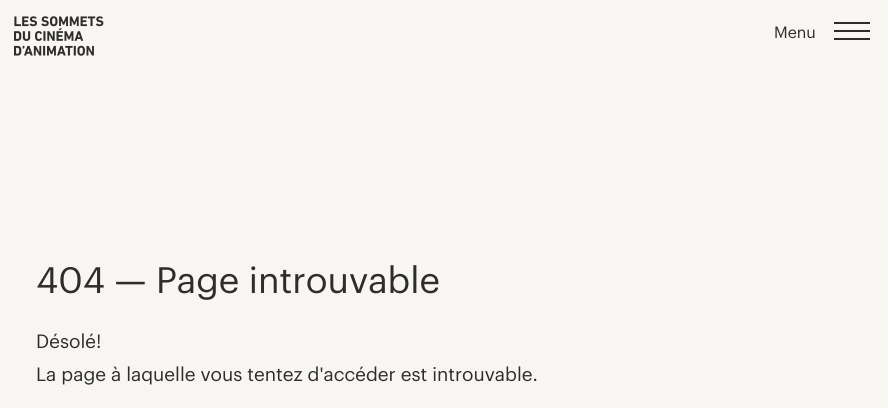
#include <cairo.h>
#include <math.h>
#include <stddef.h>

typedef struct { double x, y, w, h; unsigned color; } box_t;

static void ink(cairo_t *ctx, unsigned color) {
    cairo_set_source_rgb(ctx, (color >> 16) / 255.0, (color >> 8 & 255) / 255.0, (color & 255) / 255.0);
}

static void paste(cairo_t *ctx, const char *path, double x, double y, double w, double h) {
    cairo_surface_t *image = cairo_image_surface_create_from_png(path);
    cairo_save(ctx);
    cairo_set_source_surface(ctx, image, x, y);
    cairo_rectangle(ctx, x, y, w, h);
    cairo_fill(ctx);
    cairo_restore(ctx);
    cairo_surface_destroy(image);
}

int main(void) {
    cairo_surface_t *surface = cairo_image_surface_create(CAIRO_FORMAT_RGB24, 888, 408);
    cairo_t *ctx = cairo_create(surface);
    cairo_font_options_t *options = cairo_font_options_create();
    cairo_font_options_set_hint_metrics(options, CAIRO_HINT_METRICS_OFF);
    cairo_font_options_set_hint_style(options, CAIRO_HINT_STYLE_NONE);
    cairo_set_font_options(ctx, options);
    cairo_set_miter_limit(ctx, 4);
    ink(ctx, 0xF7F6F3);
    cairo_paint(ctx);
    paste(ctx, "media/1.png", 14, 16, 90, 40);
    cairo_select_font_face(ctx, "Graphik", CAIRO_FONT_SLANT_NORMAL, CAIRO_FONT_WEIGHT_NORMAL);
    cairo_set_font_size(ctx, 16);
    ink(ctx, 0x2E2D2A);
    cairo_move_to(ctx, 774, 38);
    cairo_show_text(ctx, "Menu");
    {
        static const box_t items[] = {
            {834, 22, 36, 2, 0x2E2D2A},
            {834, 30, 36, 2, 0x2E2D2A},
            {834, 38, 36, 2, 0x2E2D2A},
        };
        for (size_t i = 0; i < sizeof items / sizeof *items; i++) {
            ink(ctx, items[i].color);
            cairo_rectangle(ctx, items[i].x, items[i].y, items[i].w, items[i].h);
            cairo_fill(ctx);
        }
    }
    cairo_set_font_size(ctx, 36);
    cairo_move_to(ctx, 36, 293);
    cairo_show_text(ctx, "404 — Page introuvable");
    cairo_set_font_size(ctx, 18.9);
    cairo_move_to(ctx, 36, 348);
    cairo_show_text(ctx, "Désolé!");
    cairo_move_to(ctx, 36, 381);
    cairo_show_text(ctx, "La page à laquelle vous tentez d'accéder est introuvable.");
    cairo_surface_write_to_png(surface, "image.png");
    cairo_font_options_destroy(options);
    cairo_destroy(ctx);
    cairo_surface_destroy(surface);
    return 0;
}
